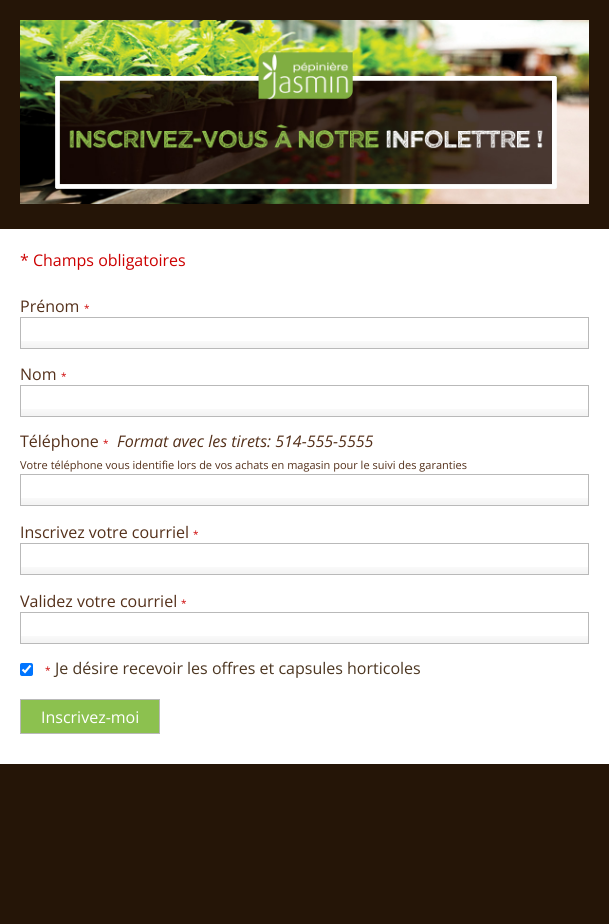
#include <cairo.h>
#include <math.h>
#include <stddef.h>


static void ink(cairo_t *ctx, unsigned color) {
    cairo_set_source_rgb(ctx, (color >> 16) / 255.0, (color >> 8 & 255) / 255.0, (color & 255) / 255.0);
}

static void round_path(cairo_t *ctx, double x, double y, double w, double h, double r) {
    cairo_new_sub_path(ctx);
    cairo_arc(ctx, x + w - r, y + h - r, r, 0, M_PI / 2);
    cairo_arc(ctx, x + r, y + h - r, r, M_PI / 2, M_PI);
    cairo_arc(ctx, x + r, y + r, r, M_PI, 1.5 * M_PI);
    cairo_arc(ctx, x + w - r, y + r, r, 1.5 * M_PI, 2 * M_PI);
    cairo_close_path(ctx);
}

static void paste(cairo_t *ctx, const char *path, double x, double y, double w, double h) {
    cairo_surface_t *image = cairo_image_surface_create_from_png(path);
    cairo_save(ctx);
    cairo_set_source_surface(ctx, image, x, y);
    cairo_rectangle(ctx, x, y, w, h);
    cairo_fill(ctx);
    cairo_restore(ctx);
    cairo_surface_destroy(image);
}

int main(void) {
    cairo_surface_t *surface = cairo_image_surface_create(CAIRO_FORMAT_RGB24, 609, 924);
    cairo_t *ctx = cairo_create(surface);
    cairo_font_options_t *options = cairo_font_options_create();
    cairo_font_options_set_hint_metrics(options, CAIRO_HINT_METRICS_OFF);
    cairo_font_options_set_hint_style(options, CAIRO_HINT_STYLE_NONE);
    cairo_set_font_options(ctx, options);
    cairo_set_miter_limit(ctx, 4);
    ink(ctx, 0x251507);
    cairo_paint(ctx);
    paste(ctx, "media/1.png", 20, 20, 569, 184);
    ink(ctx, 0xFFFFFF);
    cairo_rectangle(ctx, 0, 229, 609, 535);
    cairo_fill(ctx);
    cairo_select_font_face(ctx, "Open Sans", CAIRO_FONT_SLANT_NORMAL, CAIRO_FONT_WEIGHT_NORMAL);
    cairo_set_font_size(ctx, 16);
    ink(ctx, 0xCC0000);
    cairo_move_to(ctx, 20, 266);
    cairo_show_text(ctx, "* Champs obligatoires");
    ink(ctx, 0x54301A);
    cairo_move_to(ctx, 20, 312);
    cairo_show_text(ctx, "Prénom");
    cairo_set_font_size(ctx, 10);
    ink(ctx, 0xCC0000);
    cairo_move_to(ctx, 84, 312);
    cairo_show_text(ctx, "*");
    paste(ctx, "media/2.png", 21, 341, 567, 7);
    cairo_rectangle(ctx, 20.5, 317.5, 568, 31);
    ink(ctx, 0xB9B9B9);
    cairo_set_line_width(ctx, 1);
    cairo_stroke(ctx);
    cairo_set_font_size(ctx, 16);
    ink(ctx, 0x54301A);
    cairo_move_to(ctx, 20, 380);
    cairo_show_text(ctx, "Nom");
    cairo_set_font_size(ctx, 10);
    ink(ctx, 0xCC0000);
    cairo_move_to(ctx, 61, 380);
    cairo_show_text(ctx, "*");
    paste(ctx, "media/2.png", 21, 409, 567, 7);
    cairo_rectangle(ctx, 20.5, 385.5, 568, 31);
    ink(ctx, 0xB9B9B9);
    cairo_stroke(ctx);
    cairo_set_font_size(ctx, 16);
    ink(ctx, 0x54301A);
    cairo_move_to(ctx, 20, 447);
    cairo_show_text(ctx, "Téléphone");
    cairo_set_font_size(ctx, 10);
    ink(ctx, 0xCC0000);
    cairo_move_to(ctx, 103, 447);
    cairo_show_text(ctx, "*");
    cairo_select_font_face(ctx, "Open Sans", CAIRO_FONT_SLANT_ITALIC, CAIRO_FONT_WEIGHT_NORMAL);
    cairo_set_font_size(ctx, 16);
    ink(ctx, 0x54301A);
    cairo_move_to(ctx, 117, 447);
    cairo_show_text(ctx, "Format avec les tirets: 514-555-5555");
    cairo_select_font_face(ctx, "Open Sans", CAIRO_FONT_SLANT_NORMAL, CAIRO_FONT_WEIGHT_NORMAL);
    cairo_set_font_size(ctx, 11);
    cairo_move_to(ctx, 20, 469);
    cairo_show_text(ctx, "Votre téléphone vous identifie lors de vos achats en magasin pour le suivi des garanties");
    paste(ctx, "media/2.png", 21, 498, 567, 7);
    cairo_rectangle(ctx, 20.5, 474.5, 568, 31);
    ink(ctx, 0xB9B9B9);
    cairo_stroke(ctx);
    cairo_set_font_size(ctx, 16);
    ink(ctx, 0x54301A);
    cairo_move_to(ctx, 20, 538);
    cairo_show_text(ctx, "Inscrivez votre courriel");
    cairo_set_font_size(ctx, 10);
    ink(ctx, 0xCC0000);
    cairo_move_to(ctx, 193, 538);
    cairo_show_text(ctx, "*");
    paste(ctx, "media/2.png", 21, 567, 567, 7);
    cairo_rectangle(ctx, 20.5, 543.5, 568, 31);
    ink(ctx, 0xB9B9B9);
    cairo_stroke(ctx);
    cairo_set_font_size(ctx, 16);
    ink(ctx, 0x54301A);
    cairo_move_to(ctx, 20, 607);
    cairo_show_text(ctx, "Validez votre courriel");
    cairo_set_font_size(ctx, 10);
    ink(ctx, 0xCC0000);
    cairo_move_to(ctx, 181, 607);
    cairo_show_text(ctx, "*");
    paste(ctx, "media/2.png", 21, 636, 567, 7);
    cairo_rectangle(ctx, 20.5, 612.5, 568, 31);
    ink(ctx, 0xB9B9B9);
    cairo_stroke(ctx);
    ink(ctx, 0x0075FF);
    round_path(ctx, 20, 663, 13, 13, 2);
    cairo_fill(ctx);
    cairo_new_path(ctx);
    cairo_move_to(ctx, 22.5, 669.5);
    cairo_line_to(ctx, 25, 672);
    cairo_line_to(ctx, 30.5, 665.5);
    ink(ctx, 0xFFFFFF);
    cairo_set_line_width(ctx, 2.1);
    cairo_stroke(ctx);
    ink(ctx, 0xCC0000);
    cairo_move_to(ctx, 45, 674);
    cairo_show_text(ctx, "*");
    cairo_set_font_size(ctx, 16);
    ink(ctx, 0x4C3621);
    cairo_move_to(ctx, 55, 674);
    cairo_show_text(ctx, "Je désire recevoir les offres et capsules horticoles");
    ink(ctx, 0x8CC14F);
    cairo_rectangle(ctx, 20.5, 699.5, 139, 34);
    cairo_fill_preserve(ctx);
    ink(ctx, 0xB9B9B9);
    cairo_set_line_width(ctx, 1);
    cairo_stroke(ctx);
    ink(ctx, 0xFFFFFF);
    cairo_move_to(ctx, 41, 723);
    cairo_show_text(ctx, "Inscrivez-moi");
    cairo_surface_write_to_png(surface, "image.png");
    cairo_font_options_destroy(options);
    cairo_destroy(ctx);
    cairo_surface_destroy(surface);
    return 0;
}
